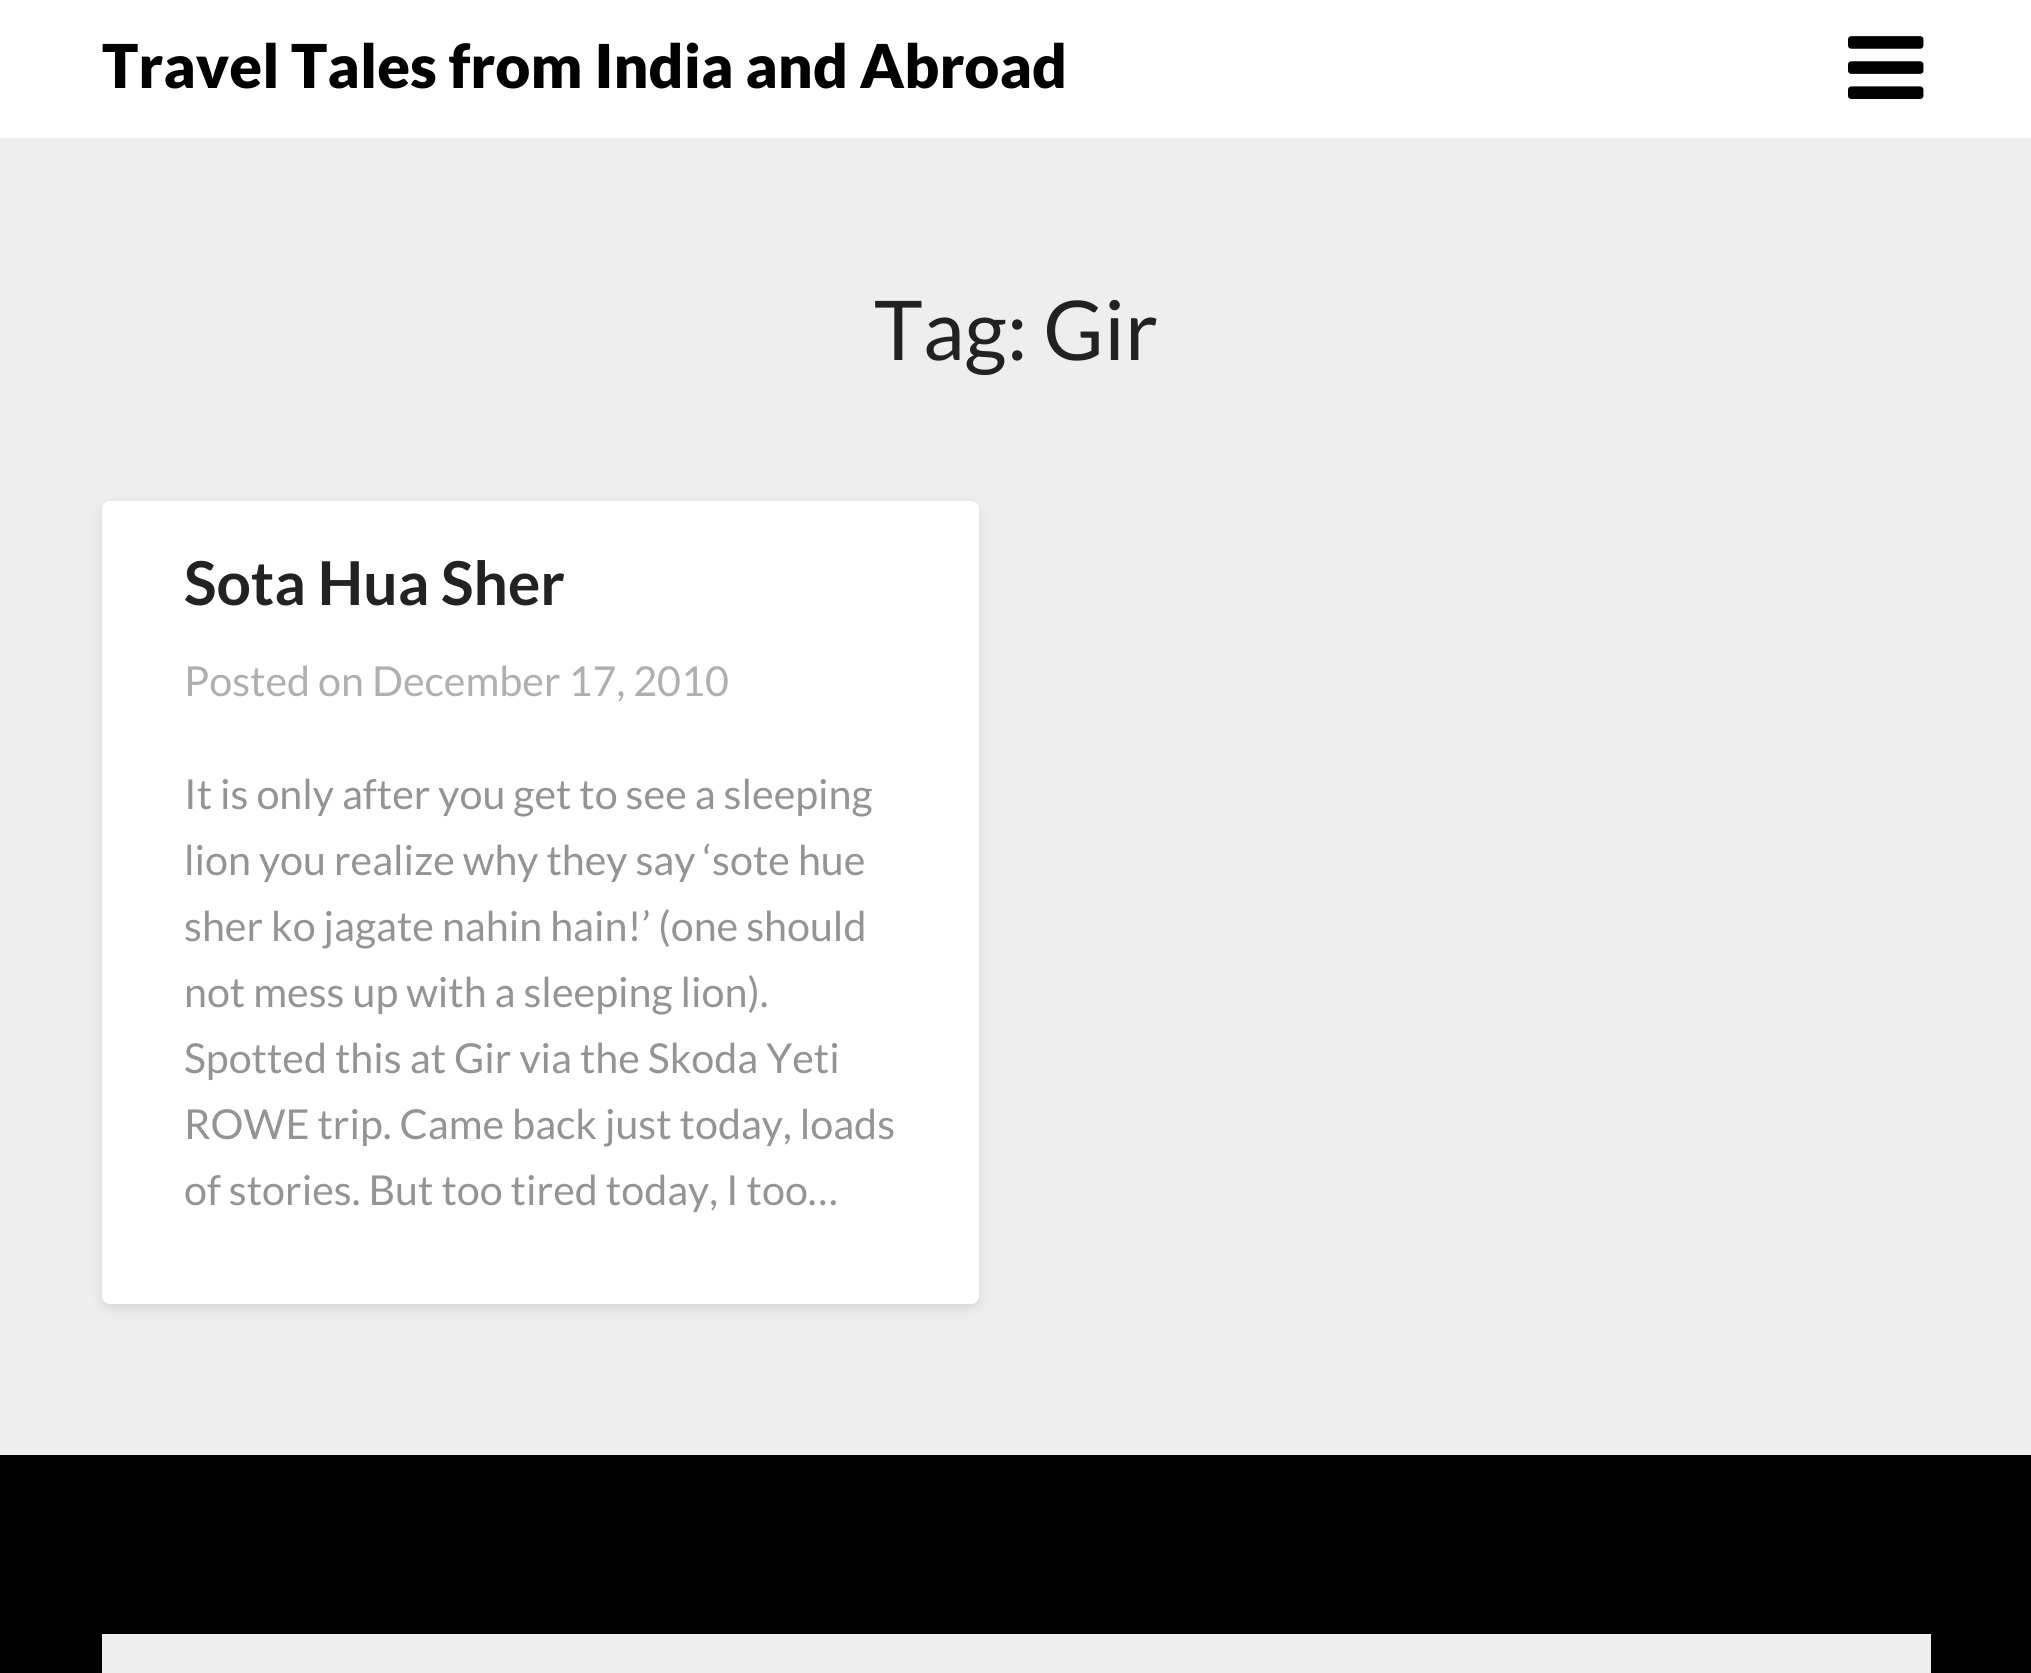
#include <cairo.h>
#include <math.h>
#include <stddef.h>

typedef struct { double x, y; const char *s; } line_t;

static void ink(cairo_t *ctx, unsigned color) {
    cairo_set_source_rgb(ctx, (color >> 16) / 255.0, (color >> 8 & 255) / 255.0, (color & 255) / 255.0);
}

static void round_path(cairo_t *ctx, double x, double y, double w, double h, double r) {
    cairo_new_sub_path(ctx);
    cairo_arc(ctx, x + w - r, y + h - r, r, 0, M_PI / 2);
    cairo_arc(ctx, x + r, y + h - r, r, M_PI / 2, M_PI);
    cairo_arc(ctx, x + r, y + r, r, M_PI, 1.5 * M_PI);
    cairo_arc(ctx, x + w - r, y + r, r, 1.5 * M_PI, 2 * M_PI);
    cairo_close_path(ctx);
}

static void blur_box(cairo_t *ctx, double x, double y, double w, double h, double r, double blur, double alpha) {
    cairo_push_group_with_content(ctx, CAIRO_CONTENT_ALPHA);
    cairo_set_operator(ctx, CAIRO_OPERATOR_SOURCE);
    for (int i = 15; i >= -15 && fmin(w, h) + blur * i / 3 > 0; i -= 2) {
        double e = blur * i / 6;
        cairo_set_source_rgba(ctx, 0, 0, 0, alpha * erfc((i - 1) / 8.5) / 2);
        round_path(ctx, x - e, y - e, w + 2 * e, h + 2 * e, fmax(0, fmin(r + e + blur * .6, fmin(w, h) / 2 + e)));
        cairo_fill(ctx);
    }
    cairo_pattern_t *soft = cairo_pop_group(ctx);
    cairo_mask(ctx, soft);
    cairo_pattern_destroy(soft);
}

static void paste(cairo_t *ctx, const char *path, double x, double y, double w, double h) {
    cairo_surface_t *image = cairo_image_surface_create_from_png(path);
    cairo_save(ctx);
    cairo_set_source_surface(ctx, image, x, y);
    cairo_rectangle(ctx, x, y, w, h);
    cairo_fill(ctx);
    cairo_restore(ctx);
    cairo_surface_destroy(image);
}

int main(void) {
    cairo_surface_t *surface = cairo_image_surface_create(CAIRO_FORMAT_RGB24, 2031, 1673);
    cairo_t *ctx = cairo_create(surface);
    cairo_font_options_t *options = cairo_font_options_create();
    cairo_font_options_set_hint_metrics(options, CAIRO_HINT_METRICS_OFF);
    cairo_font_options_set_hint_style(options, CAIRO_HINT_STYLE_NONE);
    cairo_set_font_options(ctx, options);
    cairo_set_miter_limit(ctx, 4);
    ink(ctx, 0xEEEEEE);
    cairo_paint(ctx);
    ink(ctx, 0xFFFFFF);
    cairo_rectangle(ctx, 0, 0, 2031, 138);
    cairo_fill(ctx);
    cairo_select_font_face(ctx, "Lato Black", CAIRO_FONT_SLANT_NORMAL, CAIRO_FONT_WEIGHT_NORMAL);
    cairo_set_font_size(ctx, 60.5);
    ink(ctx, 0x000000);
    cairo_move_to(ctx, 102, 88);
    cairo_show_text(ctx, "Travel Tales from India and Abroad");
    paste(ctx, "media/1.png", 1848, 36, 76, 63);
    cairo_select_font_face(ctx, "Lato", CAIRO_FONT_SLANT_NORMAL, CAIRO_FONT_WEIGHT_NORMAL);
    cairo_set_font_size(ctx, 82.5);
    ink(ctx, 0x222222);
    cairo_move_to(ctx, 874, 360);
    cairo_show_text(ctx, "Tag: Gir");
    ink(ctx, 0x000000);
    blur_box(ctx, 102, 506, 877, 803, 8, 5.5, 0.1);
    ink(ctx, 0xFFFFFF);
    round_path(ctx, 102, 501, 877, 803, 8);
    cairo_fill(ctx);
    cairo_select_font_face(ctx, "Lato", CAIRO_FONT_SLANT_NORMAL, CAIRO_FONT_WEIGHT_BOLD);
    cairo_set_font_size(ctx, 60.5);
    ink(ctx, 0x222222);
    cairo_move_to(ctx, 184, 605);
    cairo_show_text(ctx, "Sota Hua Sher");
    cairo_select_font_face(ctx, "Lato", CAIRO_FONT_SLANT_NORMAL, CAIRO_FONT_WEIGHT_NORMAL);
    cairo_set_font_size(ctx, 41.25);
    ink(ctx, 0xAFAFAF);
    cairo_move_to(ctx, 184, 696);
    cairo_show_text(ctx, "Posted on December 17, 2010");
    ink(ctx, 0x949494);
    {
        static const line_t items[] = {
            {184, 809, "It is only after you get to see a sleeping"},
            {184, 875, "lion you realize why they say ‘sote hue"},
            {184, 941, "sher ko jagate nahin hain!’ (one should"},
            {184, 1007, "not mess up with a sleeping lion)."},
            {184, 1073, "Spotted this at Gir via the Skoda Yeti"},
            {184, 1139, "ROWE trip. Came back just today, loads"},
            {184, 1205, "of stories. But too tired today, I too…"},
        };
        for (size_t i = 0; i < sizeof items / sizeof *items; i++) {
            cairo_move_to(ctx, items[i].x, items[i].y);
            cairo_show_text(ctx, items[i].s);
        }
    }
    ink(ctx, 0x000000);
    cairo_rectangle(ctx, 0, 1455, 2031, 218);
    cairo_fill(ctx);
    ink(ctx, 0xEEEEEE);
    cairo_rectangle(ctx, 102, 1634, 1829, 39);
    cairo_fill(ctx);
    cairo_surface_write_to_png(surface, "image.png");
    cairo_font_options_destroy(options);
    cairo_destroy(ctx);
    cairo_surface_destroy(surface);
    return 0;
}
